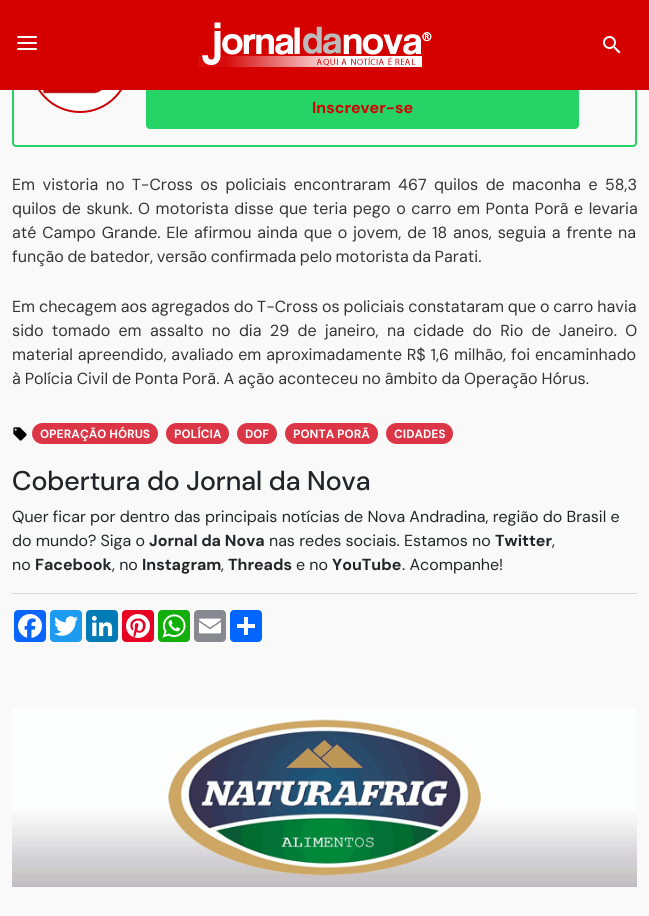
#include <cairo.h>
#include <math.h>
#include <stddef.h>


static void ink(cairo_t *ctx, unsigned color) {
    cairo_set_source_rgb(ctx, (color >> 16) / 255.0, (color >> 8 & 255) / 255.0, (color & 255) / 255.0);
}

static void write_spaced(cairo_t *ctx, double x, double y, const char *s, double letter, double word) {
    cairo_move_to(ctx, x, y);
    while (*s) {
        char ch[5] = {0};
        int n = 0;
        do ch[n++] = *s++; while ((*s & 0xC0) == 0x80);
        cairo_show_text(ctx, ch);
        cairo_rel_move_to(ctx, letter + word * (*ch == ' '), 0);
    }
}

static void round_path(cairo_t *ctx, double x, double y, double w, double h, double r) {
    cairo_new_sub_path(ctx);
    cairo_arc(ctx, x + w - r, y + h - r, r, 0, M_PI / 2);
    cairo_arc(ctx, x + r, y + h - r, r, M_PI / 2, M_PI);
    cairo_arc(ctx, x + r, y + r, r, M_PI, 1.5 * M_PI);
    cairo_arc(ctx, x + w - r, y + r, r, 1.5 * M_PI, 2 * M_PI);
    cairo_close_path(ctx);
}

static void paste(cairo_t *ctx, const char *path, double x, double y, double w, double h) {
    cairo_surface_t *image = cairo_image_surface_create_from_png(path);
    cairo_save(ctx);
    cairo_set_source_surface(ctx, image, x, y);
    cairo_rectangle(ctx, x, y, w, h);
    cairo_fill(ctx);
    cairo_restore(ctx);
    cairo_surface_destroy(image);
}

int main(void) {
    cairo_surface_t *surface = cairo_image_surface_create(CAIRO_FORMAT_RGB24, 649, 916);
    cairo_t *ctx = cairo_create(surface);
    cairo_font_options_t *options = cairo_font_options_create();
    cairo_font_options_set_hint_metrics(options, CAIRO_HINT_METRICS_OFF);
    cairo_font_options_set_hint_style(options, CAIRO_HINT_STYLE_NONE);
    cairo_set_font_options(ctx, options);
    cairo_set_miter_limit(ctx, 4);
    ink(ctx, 0xF9F9F9);
    cairo_paint(ctx);
    round_path(ctx, 13, -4, 623, 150, 3);
    ink(ctx, 0x25D366);
    cairo_stroke(ctx);
    paste(ctx, "media/3.png", 38, 90, 84, 23);
    cairo_arc(ctx, 80, 63, 49, 0, 2 * M_PI);
    ink(ctx, 0xCC0101);
    cairo_stroke(ctx);
    ink(ctx, 0x25D366);
    round_path(ctx, 146, 87, 433, 42, 4);
    cairo_fill(ctx);
    ink(ctx, 0xD50000);
    cairo_rectangle(ctx, 0, 0, 649, 90);
    cairo_fill(ctx);
    ink(ctx, 0xFFFFFF);
    round_path(ctx, 17, 36, 20, 2, 1);
    cairo_fill(ctx);
    round_path(ctx, 17, 42, 20, 2, 1);
    cairo_fill(ctx);
    round_path(ctx, 17, 48, 20, 2, 1);
    cairo_fill(ctx);
    paste(ctx, "media/1.png", 198, 22, 234, 45);
    paste(ctx, "media/2.png", 603, 36, 18, 18);
    cairo_select_font_face(ctx, "DM Sans", CAIRO_FONT_SLANT_NORMAL, CAIRO_FONT_WEIGHT_BOLD);
    cairo_set_font_size(ctx, 16);
    ink(ctx, 0xD50000);
    cairo_move_to(ctx, 312, 113);
    cairo_show_text(ctx, "Inscrever-se");
    cairo_select_font_face(ctx, "DM Sans", CAIRO_FONT_SLANT_NORMAL, CAIRO_FONT_WEIGHT_NORMAL);
    ink(ctx, 0x333333);
    write_spaced(ctx, 12, 190, "Em vistoria no T-Cross os policiais encontraram 467 quilos de maconha e 58,3", 0, 3.1);
    write_spaced(ctx, 12, 214, "quilos de skunk. O motorista disse que teria pego o carro em Ponta Porã e levaria", 0, 1.25);
    write_spaced(ctx, 12, 238, "até Campo Grande. Ele afirmou ainda que o jovem, de 18 anos, seguia a frente na", 0, 1.5);
    write_spaced(ctx, 12, 262, "função de batedor, versão confirmada pelo motorista da Parati.", 0, -0.75);
    write_spaced(ctx, 12, 312, "Em checagem aos agregados do T-Cross os policiais constataram que o carro havia", 0, -0.5);
    write_spaced(ctx, 12, 336, "sido tomado em assalto no dia 29 de janeiro, na cidade do Rio de Janeiro. O", 0, 4);
    write_spaced(ctx, 12, 360, "material apreendido, avaliado em aproximadamente R$ 1,6 milhão, foi encaminhado", 0, 0.5);
    write_spaced(ctx, 12, 384, "à Polícia Civil de Ponta Porã. A ação aconteceu no âmbito da Operação Hórus.", 0, -0.4);
    paste(ctx, "media/4.png", 13, 427, 14, 14);
    ink(ctx, 0xDC3545);
    round_path(ctx, 32, 423, 126, 21, 10.5);
    cairo_fill(ctx);
    cairo_select_font_face(ctx, "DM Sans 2", CAIRO_FONT_SLANT_NORMAL, CAIRO_FONT_WEIGHT_BOLD);
    cairo_set_font_size(ctx, 12);
    ink(ctx, 0xFFFFFF);
    cairo_move_to(ctx, 40, 438);
    cairo_show_text(ctx, "OPERAÇÃO HÓRUS");
    ink(ctx, 0xDC3545);
    round_path(ctx, 166, 423, 63, 21, 10.5);
    cairo_fill(ctx);
    ink(ctx, 0xFFFFFF);
    cairo_move_to(ctx, 174, 438);
    cairo_show_text(ctx, "POLÍCIA");
    ink(ctx, 0xDC3545);
    round_path(ctx, 237, 423, 40, 21, 10.5);
    cairo_fill(ctx);
    ink(ctx, 0xFFFFFF);
    cairo_move_to(ctx, 245, 438);
    cairo_show_text(ctx, "DOF");
    ink(ctx, 0xDC3545);
    round_path(ctx, 285, 423, 93, 21, 10.5);
    cairo_fill(ctx);
    ink(ctx, 0xFFFFFF);
    cairo_move_to(ctx, 293, 438);
    cairo_show_text(ctx, "PONTA PORÃ");
    ink(ctx, 0xDC3545);
    round_path(ctx, 386, 423, 67, 21, 10.5);
    cairo_fill(ctx);
    ink(ctx, 0xFFFFFF);
    cairo_move_to(ctx, 394, 438);
    cairo_show_text(ctx, "CIDADES");
    cairo_select_font_face(ctx, "DM Sans Medium", CAIRO_FONT_SLANT_NORMAL, CAIRO_FONT_WEIGHT_NORMAL);
    cairo_set_font_size(ctx, 27);
    ink(ctx, 0x212529);
    cairo_move_to(ctx, 12, 490);
    cairo_show_text(ctx, "Cobertura do Jornal da Nova");
    cairo_select_font_face(ctx, "DM Sans 2", CAIRO_FONT_SLANT_NORMAL, CAIRO_FONT_WEIGHT_NORMAL);
    cairo_set_font_size(ctx, 16);
    cairo_move_to(ctx, 12, 522);
    cairo_show_text(ctx, "Quer ficar por dentro das principais notícias de Nova Andradina, região do Brasil e");
    cairo_move_to(ctx, 12, 546);
    cairo_show_text(ctx, "do mundo? Siga o");
    cairo_select_font_face(ctx, "DM Sans", CAIRO_FONT_SLANT_NORMAL, CAIRO_FONT_WEIGHT_BOLD);
    cairo_move_to(ctx, 149, 546);
    cairo_show_text(ctx, "Jornal da Nova");
    cairo_select_font_face(ctx, "DM Sans 2", CAIRO_FONT_SLANT_NORMAL, CAIRO_FONT_WEIGHT_NORMAL);
    cairo_move_to(ctx, 269, 546);
    cairo_show_text(ctx, "nas redes sociais. Estamos no");
    cairo_select_font_face(ctx, "DM Sans", CAIRO_FONT_SLANT_NORMAL, CAIRO_FONT_WEIGHT_BOLD);
    cairo_move_to(ctx, 495, 546);
    cairo_show_text(ctx, "Twitter");
    cairo_select_font_face(ctx, "DM Sans 2", CAIRO_FONT_SLANT_NORMAL, CAIRO_FONT_WEIGHT_NORMAL);
    cairo_move_to(ctx, 552, 546);
    cairo_show_text(ctx, ",");
    cairo_move_to(ctx, 12, 570);
    cairo_show_text(ctx, "no");
    cairo_select_font_face(ctx, "DM Sans", CAIRO_FONT_SLANT_NORMAL, CAIRO_FONT_WEIGHT_BOLD);
    cairo_move_to(ctx, 35, 570);
    cairo_show_text(ctx, "Facebook");
    cairo_select_font_face(ctx, "DM Sans 2", CAIRO_FONT_SLANT_NORMAL, CAIRO_FONT_WEIGHT_NORMAL);
    cairo_move_to(ctx, 112, 570);
    cairo_show_text(ctx, ", no");
    cairo_select_font_face(ctx, "DM Sans", CAIRO_FONT_SLANT_NORMAL, CAIRO_FONT_WEIGHT_BOLD);
    cairo_move_to(ctx, 142, 570);
    cairo_show_text(ctx, "Instagram");
    cairo_select_font_face(ctx, "DM Sans 2", CAIRO_FONT_SLANT_NORMAL, CAIRO_FONT_WEIGHT_NORMAL);
    cairo_move_to(ctx, 221, 570);
    cairo_show_text(ctx, ",");
    cairo_select_font_face(ctx, "DM Sans", CAIRO_FONT_SLANT_NORMAL, CAIRO_FONT_WEIGHT_BOLD);
    cairo_move_to(ctx, 228, 570);
    cairo_show_text(ctx, "Threads");
    cairo_select_font_face(ctx, "DM Sans 2", CAIRO_FONT_SLANT_NORMAL, CAIRO_FONT_WEIGHT_NORMAL);
    cairo_move_to(ctx, 296, 570);
    cairo_show_text(ctx, "e no");
    cairo_select_font_face(ctx, "DM Sans", CAIRO_FONT_SLANT_NORMAL, CAIRO_FONT_WEIGHT_BOLD);
    cairo_move_to(ctx, 332, 570);
    cairo_show_text(ctx, "YouTube");
    cairo_select_font_face(ctx, "DM Sans 2", CAIRO_FONT_SLANT_NORMAL, CAIRO_FONT_WEIGHT_NORMAL);
    cairo_move_to(ctx, 402, 570);
    cairo_show_text(ctx, ". Acompanhe!");
    ink(ctx, 0xD9D9DA);
    cairo_rectangle(ctx, 12, 593, 625, 1);
    cairo_fill(ctx);
    ink(ctx, 0x0866FF);
    round_path(ctx, 14, 610, 32, 32, 4);
    cairo_fill(ctx);
    paste(ctx, "media/5.png", 18, 614, 24, 24);
    ink(ctx, 0x1D9BF0);
    round_path(ctx, 50, 610, 32, 32, 4);
    cairo_fill(ctx);
    paste(ctx, "media/6.png", 54, 616, 24, 20);
    ink(ctx, 0x007BB5);
    round_path(ctx, 86, 610, 32, 32, 4);
    cairo_fill(ctx);
    paste(ctx, "media/7.png", 91, 615, 22, 22);
    ink(ctx, 0xE60023);
    round_path(ctx, 122, 610, 32, 32, 4);
    cairo_fill(ctx);
    paste(ctx, "media/8.png", 126, 614, 24, 24);
    ink(ctx, 0x12AF0A);
    round_path(ctx, 158, 610, 32, 32, 4);
    cairo_fill(ctx);
    paste(ctx, "media/9.png", 162, 614, 24, 24);
    ink(ctx, 0x888990);
    round_path(ctx, 194, 610, 32, 32, 4);
    cairo_fill(ctx);
    paste(ctx, "media/10.png", 199, 618, 22, 16);
    ink(ctx, 0x0166FF);
    round_path(ctx, 230, 610, 32, 32, 4);
    cairo_fill(ctx);
    ink(ctx, 0xFFFFFF);
    cairo_rectangle(ctx, 244, 617, 4, 18);
    cairo_fill(ctx);
    cairo_rectangle(ctx, 237, 624, 18, 4);
    cairo_fill(ctx);
    paste(ctx, "media/11.png", 12, 708, 625, 179);
    cairo_surface_write_to_png(surface, "image.png");
    cairo_font_options_destroy(options);
    cairo_destroy(ctx);
    cairo_surface_destroy(surface);
    return 0;
}
